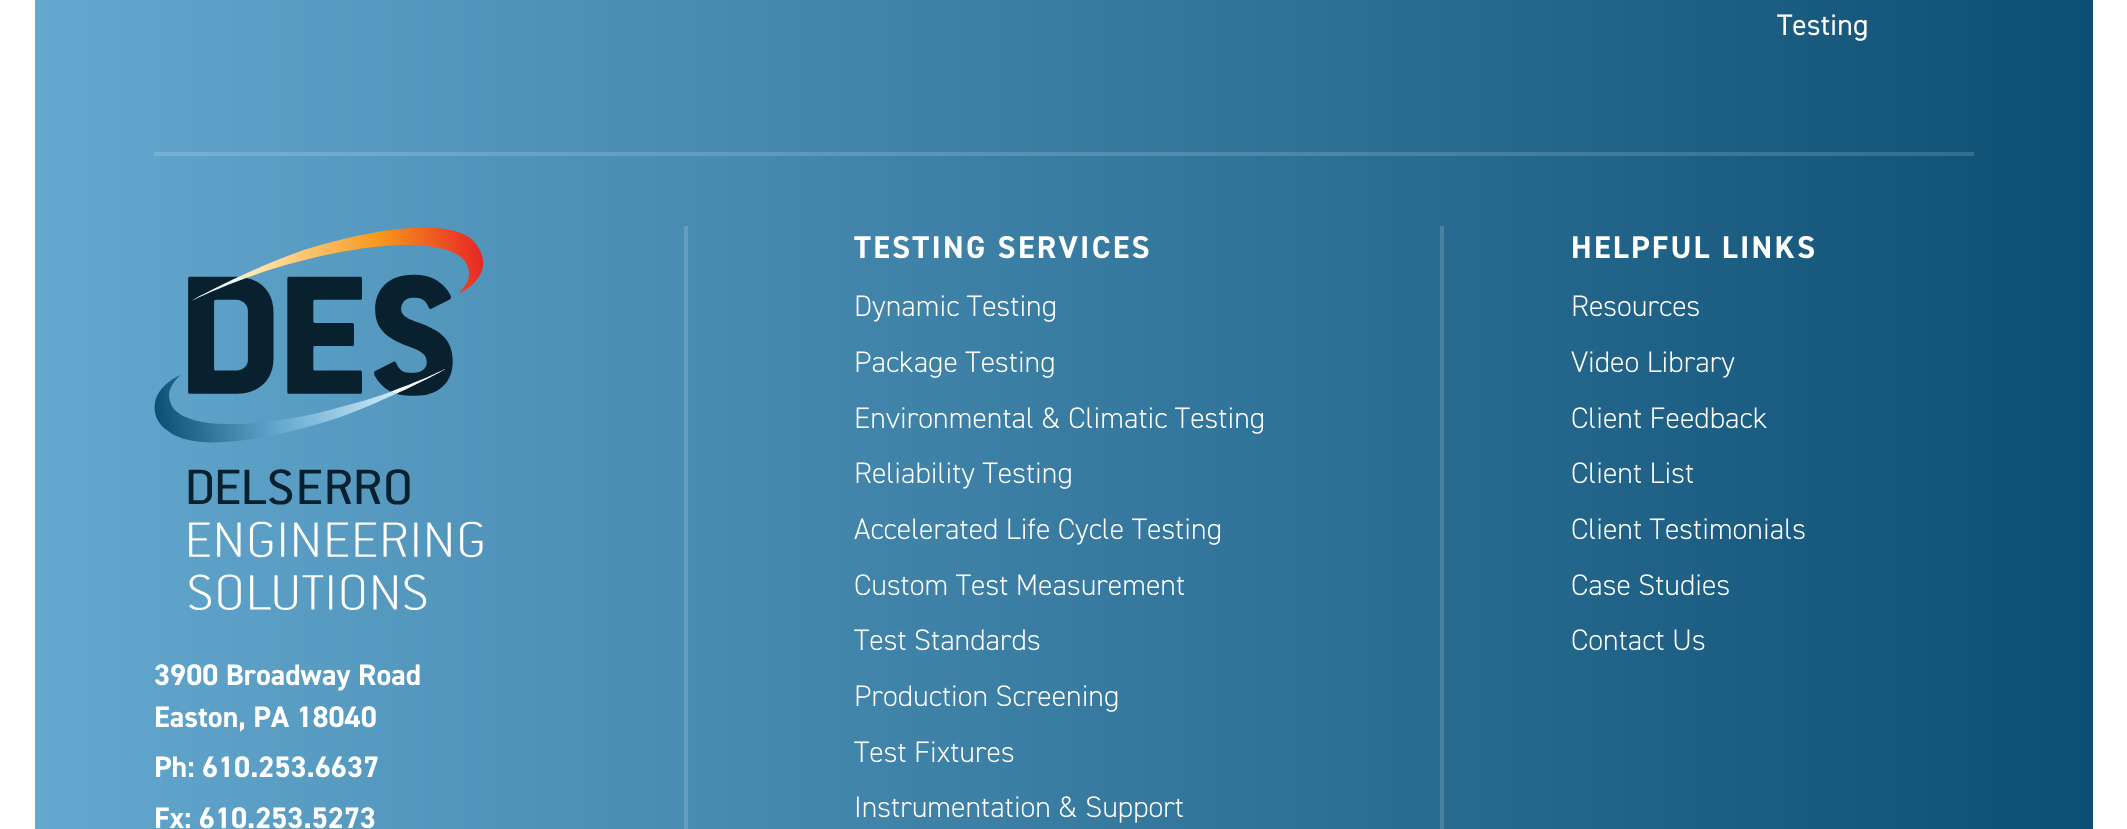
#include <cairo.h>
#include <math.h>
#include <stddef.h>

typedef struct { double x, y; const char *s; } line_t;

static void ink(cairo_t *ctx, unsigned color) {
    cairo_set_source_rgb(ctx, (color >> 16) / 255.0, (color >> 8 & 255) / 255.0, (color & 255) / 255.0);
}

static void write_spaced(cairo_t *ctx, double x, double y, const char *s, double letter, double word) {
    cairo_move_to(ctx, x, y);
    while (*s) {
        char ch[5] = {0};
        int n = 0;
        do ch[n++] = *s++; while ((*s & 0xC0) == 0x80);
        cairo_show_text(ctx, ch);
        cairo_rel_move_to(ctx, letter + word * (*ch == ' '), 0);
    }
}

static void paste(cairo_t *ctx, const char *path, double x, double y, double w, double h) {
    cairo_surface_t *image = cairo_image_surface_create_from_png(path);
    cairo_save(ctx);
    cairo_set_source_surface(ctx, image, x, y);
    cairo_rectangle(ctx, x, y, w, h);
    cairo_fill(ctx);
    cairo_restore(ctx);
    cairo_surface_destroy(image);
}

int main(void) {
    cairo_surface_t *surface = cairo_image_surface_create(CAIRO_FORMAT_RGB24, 2127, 829);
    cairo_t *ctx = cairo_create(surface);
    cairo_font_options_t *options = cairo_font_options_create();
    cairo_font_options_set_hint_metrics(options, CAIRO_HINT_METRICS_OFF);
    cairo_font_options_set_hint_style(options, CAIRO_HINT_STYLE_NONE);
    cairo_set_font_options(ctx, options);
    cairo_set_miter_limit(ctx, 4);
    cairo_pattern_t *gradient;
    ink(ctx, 0xFFFFFF);
    cairo_paint(ctx);
    gradient = cairo_pattern_create_linear(35, 613, 2095, 613);
    cairo_pattern_add_color_stop_rgba(gradient, 0, 0.396, 0.659, 0.812, 1);
    cairo_pattern_add_color_stop_rgba(gradient, 1, 0.051, 0.31, 0.451, 1);
    cairo_set_source(ctx, gradient);
    cairo_pattern_destroy(gradient);
    cairo_rectangle(ctx, 35, 0, 2058, 829);
    cairo_fill(ctx);
    gradient = cairo_pattern_create_linear(35, 613, 2095, 613);
    cairo_pattern_add_color_stop_rgba(gradient, 0, 0.486, 0.71, 0.839, 1);
    cairo_pattern_add_color_stop_rgba(gradient, 1, 0.192, 0.412, 0.533, 1);
    cairo_set_source(ctx, gradient);
    cairo_pattern_destroy(gradient);
    cairo_rectangle(ctx, 154, 152, 1820, 4);
    cairo_fill(ctx);
    cairo_select_font_face(ctx, "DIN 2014", CAIRO_FONT_SLANT_NORMAL, CAIRO_FONT_WEIGHT_NORMAL);
    cairo_set_font_size(ctx, 29.75);
    ink(ctx, 0xFFFFFF);
    cairo_move_to(ctx, 1777, 35);
    cairo_show_text(ctx, "Testing");
    ink(ctx, 0x4981A1);
    cairo_rectangle(ctx, 1440, 226, 4, 603);
    cairo_fill(ctx);
    ink(ctx, 0x649DBE);
    cairo_rectangle(ctx, 684, 226, 4, 603);
    cairo_fill(ctx);
    cairo_select_font_face(ctx, "DIN 2014", CAIRO_FONT_SLANT_NORMAL, CAIRO_FONT_WEIGHT_BOLD);
    cairo_set_font_size(ctx, 31.5);
    ink(ctx, 0xFFFFFF);
    write_spaced(ctx, 854, 258, "TESTING SERVICES", 2.25, 0);
    cairo_select_font_face(ctx, "DIN 2014 Light", CAIRO_FONT_SLANT_NORMAL, CAIRO_FONT_WEIGHT_NORMAL);
    cairo_set_font_size(ctx, 29.75);
    {
        static const line_t items[] = {
            {854, 316, "Dynamic Testing"},
            {854, 372, "Package Testing"},
            {854, 428, "Environmental & Climatic Testing"},
            {854, 483, "Reliability Testing"},
            {854, 539, "Accelerated Life Cycle Testing"},
            {854, 595, "Custom Test Measurement"},
            {854, 650, "Test Standards"},
            {854, 706, "Production Screening"},
            {854, 762, "Test Fixtures"},
            {854, 817, "Instrumentation & Support"},
        };
        for (size_t i = 0; i < sizeof items / sizeof *items; i++) {
            cairo_move_to(ctx, items[i].x, items[i].y);
            cairo_show_text(ctx, items[i].s);
        }
    }
    cairo_select_font_face(ctx, "DIN 2014", CAIRO_FONT_SLANT_NORMAL, CAIRO_FONT_WEIGHT_BOLD);
    cairo_set_font_size(ctx, 31.5);
    write_spaced(ctx, 1571, 258, "HELPFUL LINKS", 2.25, 0);
    cairo_select_font_face(ctx, "DIN 2014 Light", CAIRO_FONT_SLANT_NORMAL, CAIRO_FONT_WEIGHT_NORMAL);
    cairo_set_font_size(ctx, 29.75);
    {
        static const line_t items[] = {
            {1571, 316, "Resources"},
            {1571, 372, "Video Library"},
            {1571, 428, "Client Feedback"},
            {1571, 483, "Client List"},
            {1571, 539, "Client Testimonials"},
            {1571, 595, "Case Studies"},
            {1571, 650, "Contact Us"},
        };
        for (size_t i = 0; i < sizeof items / sizeof *items; i++) {
            cairo_move_to(ctx, items[i].x, items[i].y);
            cairo_show_text(ctx, items[i].s);
        }
    }
    paste(ctx, "media/1.png", 154, 227, 330, 383);
    cairo_select_font_face(ctx, "DIN 2014", CAIRO_FONT_SLANT_NORMAL, CAIRO_FONT_WEIGHT_BOLD);
    {
        static const line_t items[] = {
            {154, 685, "3900 Broadway Road"},
            {154, 727, "Easton, PA 18040"},
            {154, 777, "Ph: 610.253.6637"},
            {154, 828, "Fx: 610.253.5273"},
        };
        for (size_t i = 0; i < sizeof items / sizeof *items; i++) {
            cairo_move_to(ctx, items[i].x, items[i].y);
            cairo_show_text(ctx, items[i].s);
        }
    }
    cairo_surface_write_to_png(surface, "image.png");
    cairo_font_options_destroy(options);
    cairo_destroy(ctx);
    cairo_surface_destroy(surface);
    return 0;
}
